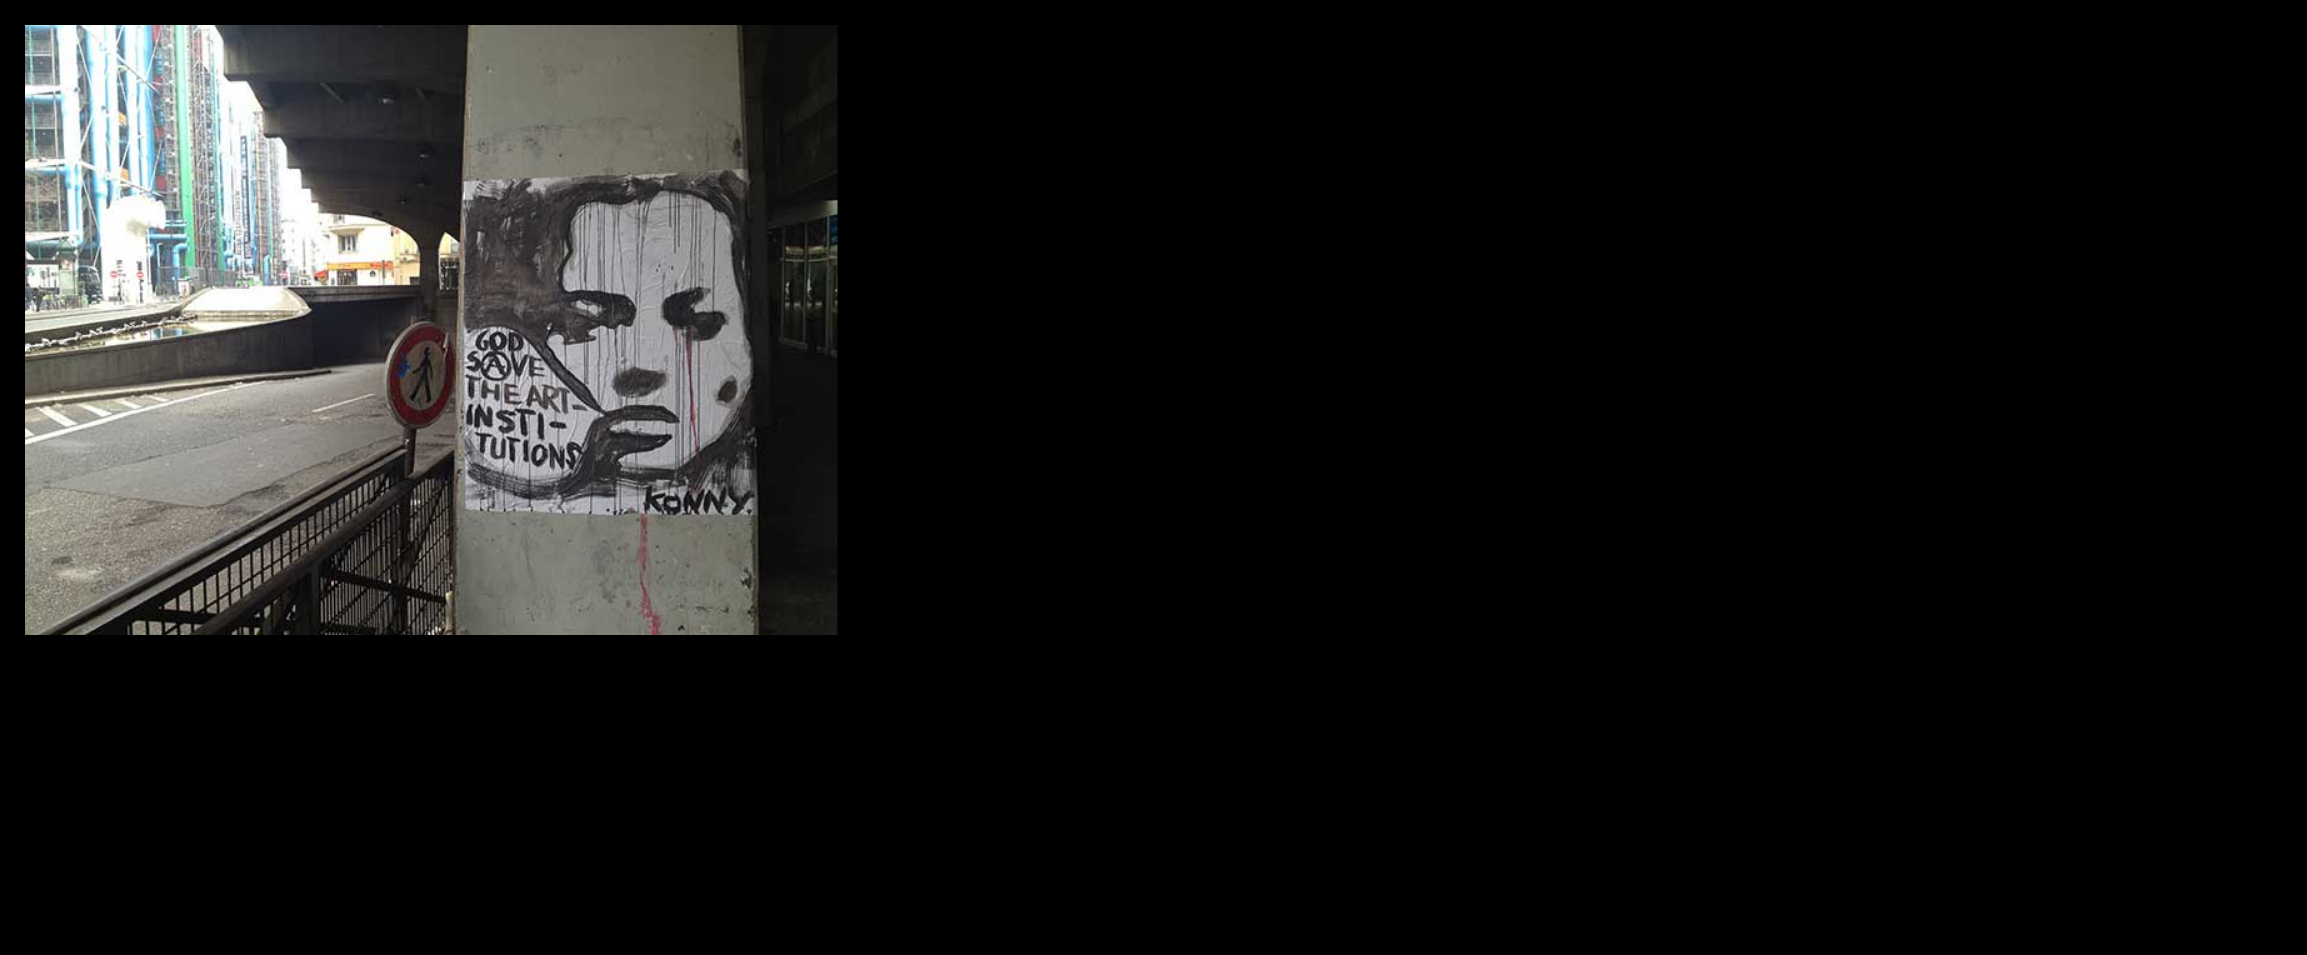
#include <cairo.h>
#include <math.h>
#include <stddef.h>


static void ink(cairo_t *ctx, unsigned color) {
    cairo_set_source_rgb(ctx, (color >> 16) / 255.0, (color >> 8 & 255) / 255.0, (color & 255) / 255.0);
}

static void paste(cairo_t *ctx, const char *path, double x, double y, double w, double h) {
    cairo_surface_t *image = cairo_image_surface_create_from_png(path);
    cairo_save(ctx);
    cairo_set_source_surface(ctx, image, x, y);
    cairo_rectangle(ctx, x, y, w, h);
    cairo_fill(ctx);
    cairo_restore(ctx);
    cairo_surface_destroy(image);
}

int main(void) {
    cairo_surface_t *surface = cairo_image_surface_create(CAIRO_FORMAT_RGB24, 2307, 955);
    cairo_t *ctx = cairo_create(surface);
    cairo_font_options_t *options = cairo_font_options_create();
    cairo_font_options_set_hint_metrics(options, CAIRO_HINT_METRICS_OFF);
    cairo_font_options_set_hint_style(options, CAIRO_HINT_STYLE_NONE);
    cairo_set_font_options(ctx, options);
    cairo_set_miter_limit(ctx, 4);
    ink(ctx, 0x000000);
    cairo_paint(ctx);
    paste(ctx, "media/1.png", 25, 25, 813, 610);
    cairo_surface_write_to_png(surface, "image.png");
    cairo_font_options_destroy(options);
    cairo_destroy(ctx);
    cairo_surface_destroy(surface);
    return 0;
}
